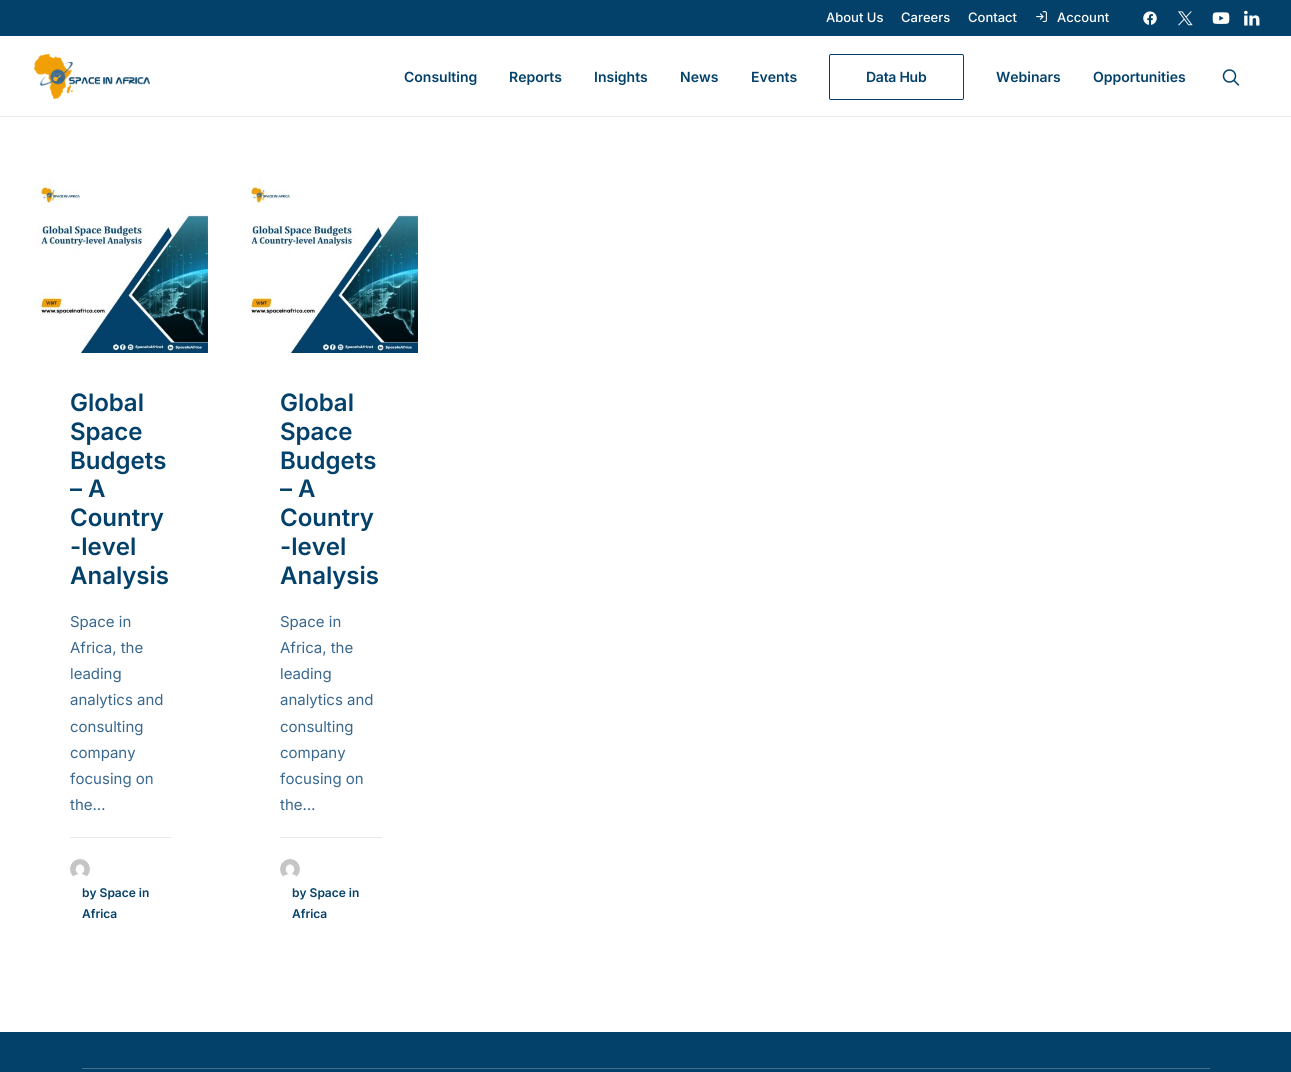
#include <cairo.h>
#include <math.h>
#include <stddef.h>

typedef struct { double x, y; const char *s; } line_t;

static void ink(cairo_t *ctx, unsigned color) {
    cairo_set_source_rgb(ctx, (color >> 16) / 255.0, (color >> 8 & 255) / 255.0, (color & 255) / 255.0);
}

static void write_spaced(cairo_t *ctx, double x, double y, const char *s, double letter, double word) {
    cairo_move_to(ctx, x, y);
    while (*s) {
        char ch[5] = {0};
        int n = 0;
        do ch[n++] = *s++; while ((*s & 0xC0) == 0x80);
        cairo_show_text(ctx, ch);
        cairo_rel_move_to(ctx, letter + word * (*ch == ' '), 0);
    }
}

static void round_path(cairo_t *ctx, double x, double y, double w, double h, double r) {
    cairo_new_sub_path(ctx);
    cairo_arc(ctx, x + w - r, y + h - r, r, 0, M_PI / 2);
    cairo_arc(ctx, x + r, y + h - r, r, M_PI / 2, M_PI);
    cairo_arc(ctx, x + r, y + r, r, M_PI, 1.5 * M_PI);
    cairo_arc(ctx, x + w - r, y + r, r, 1.5 * M_PI, 2 * M_PI);
    cairo_close_path(ctx);
}

static void paste(cairo_t *ctx, const char *path, double x, double y, double w, double h) {
    cairo_surface_t *image = cairo_image_surface_create_from_png(path);
    cairo_save(ctx);
    cairo_set_source_surface(ctx, image, x, y);
    cairo_rectangle(ctx, x, y, w, h);
    cairo_fill(ctx);
    cairo_restore(ctx);
    cairo_surface_destroy(image);
}

int main(void) {
    cairo_surface_t *surface = cairo_image_surface_create(CAIRO_FORMAT_RGB24, 1291, 1072);
    cairo_t *ctx = cairo_create(surface);
    cairo_font_options_t *options = cairo_font_options_create();
    cairo_font_options_set_hint_metrics(options, CAIRO_HINT_METRICS_OFF);
    cairo_font_options_set_hint_style(options, CAIRO_HINT_STYLE_NONE);
    cairo_set_font_options(ctx, options);
    cairo_set_miter_limit(ctx, 4);
    ink(ctx, 0xFFFFFF);
    cairo_paint(ctx);
    ink(ctx, 0x03416A);
    cairo_rectangle(ctx, 0, 0, 1291, 36);
    cairo_fill(ctx);
    cairo_select_font_face(ctx, "Inter Medium", CAIRO_FONT_SLANT_NORMAL, CAIRO_FONT_WEIGHT_NORMAL);
    cairo_set_font_size(ctx, 13);
    ink(ctx, 0xFFFFFF);
    {
        static const line_t items[] = {
            {826, 22, "About Us"},
            {901, 22, "Careers"},
            {968, 22, "Contact"},
        };
        for (size_t i = 0; i < sizeof items / sizeof *items; i++) {
            cairo_move_to(ctx, items[i].x, items[i].y);
            cairo_show_text(ctx, items[i].s);
        }
    }
    paste(ctx, "media/1.png", 1036, 11, 11, 11);
    cairo_move_to(ctx, 1057, 22);
    cairo_show_text(ctx, "Account");
    paste(ctx, "media/2.png", 1143, 11, 14, 14);
    paste(ctx, "media/3.png", 1178, 11, 15, 15);
    paste(ctx, "media/4.png", 1212, 12, 18, 12);
    paste(ctx, "media/5.png", 1244, 10, 16, 16);
    paste(ctx, "media/6.png", 34, 54, 116, 45);
    cairo_select_font_face(ctx, "Inter SemiBold", CAIRO_FONT_SLANT_NORMAL, CAIRO_FONT_WEIGHT_NORMAL);
    cairo_set_font_size(ctx, 14);
    ink(ctx, 0x03416A);
    {
        static const line_t items[] = {
            {404, 82, "Consulting"},
            {509, 82, "Reports"},
            {594, 82, "Insights"},
            {680, 82, "News"},
            {751, 82, "Events"},
        };
        for (size_t i = 0; i < sizeof items / sizeof *items; i++) {
            cairo_move_to(ctx, items[i].x, items[i].y);
            cairo_show_text(ctx, items[i].s);
        }
    }
    round_path(ctx, 829.5, 54.5, 134, 45, 1.5);
    cairo_set_line_width(ctx, 1);
    cairo_stroke(ctx);
    write_spaced(ctx, 866, 82, "Data Hub", -0.25, 0);
    cairo_move_to(ctx, 996, 82);
    cairo_show_text(ctx, "Webinars");
    cairo_move_to(ctx, 1093, 82);
    cairo_show_text(ctx, "Opportunities");
    paste(ctx, "media/7.png", 1222, 69, 18, 17);
    ink(ctx, 0xEBEBEB);
    cairo_rectangle(ctx, 0, 116, 1291, 1);
    cairo_fill(ctx);
    paste(ctx, "media/8.png", 34, 180, 174, 173);
    cairo_set_font_size(ctx, 24);
    ink(ctx, 0x03416A);
    {
        static const line_t items[] = {
            {70, 411, "Global"},
            {70, 440, "Space"},
            {70, 469, "Budgets"},
            {70, 497, "– A"},
            {70, 526, "Country"},
            {70, 555, "-level"},
            {70, 584, "Analysis"},
        };
        for (size_t i = 0; i < sizeof items / sizeof *items; i++) {
            cairo_move_to(ctx, items[i].x, items[i].y);
            cairo_show_text(ctx, items[i].s);
        }
    }
    cairo_select_font_face(ctx, "Inter", CAIRO_FONT_SLANT_NORMAL, CAIRO_FONT_WEIGHT_NORMAL);
    cairo_set_font_size(ctx, 15);
    ink(ctx, 0x38678F);
    {
        static const line_t items[] = {
            {70, 627, "Space in"},
            {70, 653, "Africa, the"},
            {70, 679, "leading"},
            {70, 705, "analytics and"},
            {70, 732, "consulting"},
            {70, 758, "company"},
            {70, 784, "focusing on"},
            {70, 810, "the…"},
        };
        for (size_t i = 0; i < sizeof items / sizeof *items; i++) {
            cairo_move_to(ctx, items[i].x, items[i].y);
            cairo_show_text(ctx, items[i].s);
        }
    }
    ink(ctx, 0xEAEAEA);
    cairo_rectangle(ctx, 70, 837, 102, 1);
    cairo_fill(ctx);
    paste(ctx, "media/9.png", 70, 859, 20, 18);
    cairo_select_font_face(ctx, "Inter SemiBold", CAIRO_FONT_SLANT_NORMAL, CAIRO_FONT_WEIGHT_NORMAL);
    cairo_set_font_size(ctx, 12);
    ink(ctx, 0x03416A);
    cairo_move_to(ctx, 82, 897);
    cairo_show_text(ctx, "by Space in");
    cairo_move_to(ctx, 82, 918);
    cairo_show_text(ctx, "Africa");
    paste(ctx, "media/10.png", 244, 180, 174, 173);
    cairo_set_font_size(ctx, 24);
    {
        static const line_t items[] = {
            {280, 411, "Global"},
            {280, 440, "Space"},
            {280, 469, "Budgets"},
            {280, 497, "– A"},
            {280, 526, "Country"},
            {280, 555, "-level"},
            {280, 584, "Analysis"},
        };
        for (size_t i = 0; i < sizeof items / sizeof *items; i++) {
            cairo_move_to(ctx, items[i].x, items[i].y);
            cairo_show_text(ctx, items[i].s);
        }
    }
    cairo_select_font_face(ctx, "Inter", CAIRO_FONT_SLANT_NORMAL, CAIRO_FONT_WEIGHT_NORMAL);
    cairo_set_font_size(ctx, 15);
    ink(ctx, 0x38678F);
    {
        static const line_t items[] = {
            {280, 627, "Space in"},
            {280, 653, "Africa, the"},
            {280, 679, "leading"},
            {280, 705, "analytics and"},
            {280, 732, "consulting"},
            {280, 758, "company"},
            {280, 784, "focusing on"},
            {280, 810, "the…"},
        };
        for (size_t i = 0; i < sizeof items / sizeof *items; i++) {
            cairo_move_to(ctx, items[i].x, items[i].y);
            cairo_show_text(ctx, items[i].s);
        }
    }
    ink(ctx, 0xEAEAEA);
    cairo_rectangle(ctx, 280, 837, 102, 1);
    cairo_fill(ctx);
    paste(ctx, "media/11.png", 280, 859, 20, 18);
    cairo_select_font_face(ctx, "Inter SemiBold", CAIRO_FONT_SLANT_NORMAL, CAIRO_FONT_WEIGHT_NORMAL);
    cairo_set_font_size(ctx, 12);
    ink(ctx, 0x03416A);
    cairo_move_to(ctx, 292, 897);
    cairo_show_text(ctx, "by Space in");
    cairo_move_to(ctx, 292, 918);
    cairo_show_text(ctx, "Africa");
    cairo_rectangle(ctx, 0, 1032, 1291, 40);
    cairo_fill(ctx);
    ink(ctx, 0x42718F);
    cairo_rectangle(ctx, 82, 1068, 1128, 1);
    cairo_fill(ctx);
    cairo_surface_write_to_png(surface, "image.png");
    cairo_font_options_destroy(options);
    cairo_destroy(ctx);
    cairo_surface_destroy(surface);
    return 0;
}
